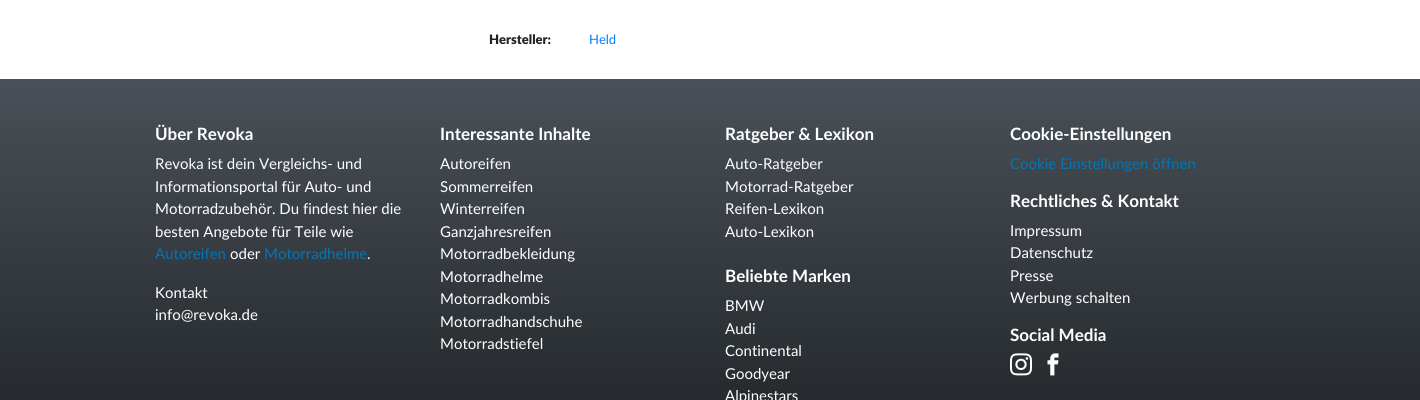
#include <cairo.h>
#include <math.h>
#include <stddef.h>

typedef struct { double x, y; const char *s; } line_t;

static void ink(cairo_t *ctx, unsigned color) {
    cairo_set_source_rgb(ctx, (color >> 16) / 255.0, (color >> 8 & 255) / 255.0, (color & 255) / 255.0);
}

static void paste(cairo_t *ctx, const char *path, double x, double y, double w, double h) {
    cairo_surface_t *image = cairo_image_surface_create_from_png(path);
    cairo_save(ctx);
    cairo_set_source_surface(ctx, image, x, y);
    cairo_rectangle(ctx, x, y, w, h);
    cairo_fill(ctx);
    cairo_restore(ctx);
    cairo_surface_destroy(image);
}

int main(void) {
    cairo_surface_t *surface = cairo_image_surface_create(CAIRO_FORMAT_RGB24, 1420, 400);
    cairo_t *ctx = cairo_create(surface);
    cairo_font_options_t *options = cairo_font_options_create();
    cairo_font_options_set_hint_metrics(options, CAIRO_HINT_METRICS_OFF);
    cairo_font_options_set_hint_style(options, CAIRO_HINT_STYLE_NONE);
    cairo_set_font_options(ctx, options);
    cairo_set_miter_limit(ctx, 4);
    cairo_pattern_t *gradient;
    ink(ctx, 0xFFFFFF);
    cairo_paint(ctx);
    cairo_select_font_face(ctx, "Lato Black", CAIRO_FONT_SLANT_NORMAL, CAIRO_FONT_WEIGHT_NORMAL);
    cairo_set_font_size(ctx, 13);
    ink(ctx, 0x212121);
    cairo_move_to(ctx, 489, 44);
    cairo_show_text(ctx, "Hersteller:");
    cairo_select_font_face(ctx, "Lato", CAIRO_FONT_SLANT_NORMAL, CAIRO_FONT_WEIGHT_NORMAL);
    ink(ctx, 0x007BFF);
    cairo_move_to(ctx, 589, 44);
    cairo_show_text(ctx, "Held");
    gradient = cairo_pattern_create_linear(710, 79, 710, 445);
    cairo_pattern_add_color_stop_rgba(gradient, 0, 0.286, 0.314, 0.341, 1);
    cairo_pattern_add_color_stop_rgba(gradient, 1, 0.129, 0.145, 0.161, 1);
    cairo_set_source(ctx, gradient);
    cairo_pattern_destroy(gradient);
    cairo_rectangle(ctx, 0, 79, 1420, 321);
    cairo_fill(ctx);
    cairo_select_font_face(ctx, "Lato", CAIRO_FONT_SLANT_NORMAL, CAIRO_FONT_WEIGHT_BOLD);
    cairo_set_font_size(ctx, 17);
    ink(ctx, 0xFFFFFF);
    cairo_move_to(ctx, 155, 140);
    cairo_show_text(ctx, "Über Revoka");
    cairo_select_font_face(ctx, "Lato", CAIRO_FONT_SLANT_NORMAL, CAIRO_FONT_WEIGHT_NORMAL);
    cairo_set_font_size(ctx, 15);
    {
        static const line_t items[] = {
            {155, 169, "Revoka ist dein Vergleichs- und"},
            {155, 192, "Informationsportal für Auto- und"},
            {155, 214, "Motorradzubehör. Du findest hier die"},
            {155, 237, "besten Angebote für Teile wie"},
        };
        for (size_t i = 0; i < sizeof items / sizeof *items; i++) {
            cairo_move_to(ctx, items[i].x, items[i].y);
            cairo_show_text(ctx, items[i].s);
        }
    }
    ink(ctx, 0x0077B6);
    cairo_move_to(ctx, 155, 259);
    cairo_show_text(ctx, "Autoreifen");
    ink(ctx, 0xFFFFFF);
    cairo_move_to(ctx, 230, 259);
    cairo_show_text(ctx, "oder");
    ink(ctx, 0x0077B6);
    cairo_move_to(ctx, 264, 259);
    cairo_show_text(ctx, "Motorradhelme");
    ink(ctx, 0xFFFFFF);
    {
        static const line_t items[] = {
            {367, 259, "."},
            {155, 298, "Kontakt"},
            {155, 320, "info@revoka.de"},
        };
        for (size_t i = 0; i < sizeof items / sizeof *items; i++) {
            cairo_move_to(ctx, items[i].x, items[i].y);
            cairo_show_text(ctx, items[i].s);
        }
    }
    cairo_select_font_face(ctx, "Lato", CAIRO_FONT_SLANT_NORMAL, CAIRO_FONT_WEIGHT_BOLD);
    cairo_set_font_size(ctx, 17);
    cairo_move_to(ctx, 440, 140);
    cairo_show_text(ctx, "Interessante Inhalte");
    cairo_select_font_face(ctx, "Lato", CAIRO_FONT_SLANT_NORMAL, CAIRO_FONT_WEIGHT_NORMAL);
    cairo_set_font_size(ctx, 15);
    {
        static const line_t items[] = {
            {440, 169, "Autoreifen"},
            {440, 192, "Sommerreifen"},
            {440, 214, "Winterreifen"},
            {440, 237, "Ganzjahresreifen"},
            {440, 259, "Motorradbekleidung"},
            {440, 282, "Motorradhelme"},
            {440, 304, "Motorradkombis"},
            {440, 327, "Motorradhandschuhe"},
            {440, 349, "Motorradstiefel"},
        };
        for (size_t i = 0; i < sizeof items / sizeof *items; i++) {
            cairo_move_to(ctx, items[i].x, items[i].y);
            cairo_show_text(ctx, items[i].s);
        }
    }
    cairo_select_font_face(ctx, "Lato", CAIRO_FONT_SLANT_NORMAL, CAIRO_FONT_WEIGHT_BOLD);
    cairo_set_font_size(ctx, 17);
    cairo_move_to(ctx, 725, 140);
    cairo_show_text(ctx, "Ratgeber & Lexikon");
    cairo_select_font_face(ctx, "Lato", CAIRO_FONT_SLANT_NORMAL, CAIRO_FONT_WEIGHT_NORMAL);
    cairo_set_font_size(ctx, 15);
    {
        static const line_t items[] = {
            {725, 169, "Auto-Ratgeber"},
            {725, 192, "Motorrad-Ratgeber"},
            {725, 214, "Reifen-Lexikon"},
            {725, 237, "Auto-Lexikon"},
        };
        for (size_t i = 0; i < sizeof items / sizeof *items; i++) {
            cairo_move_to(ctx, items[i].x, items[i].y);
            cairo_show_text(ctx, items[i].s);
        }
    }
    cairo_select_font_face(ctx, "Lato", CAIRO_FONT_SLANT_NORMAL, CAIRO_FONT_WEIGHT_BOLD);
    cairo_set_font_size(ctx, 17);
    cairo_move_to(ctx, 725, 282);
    cairo_show_text(ctx, "Beliebte Marken");
    cairo_select_font_face(ctx, "Lato", CAIRO_FONT_SLANT_NORMAL, CAIRO_FONT_WEIGHT_NORMAL);
    cairo_set_font_size(ctx, 15);
    {
        static const line_t items[] = {
            {725, 311, "BMW"},
            {725, 334, "Audi"},
            {725, 356, "Continental"},
            {725, 379, "Goodyear"},
            {725, 401, "Alpinestars"},
        };
        for (size_t i = 0; i < sizeof items / sizeof *items; i++) {
            cairo_move_to(ctx, items[i].x, items[i].y);
            cairo_show_text(ctx, items[i].s);
        }
    }
    cairo_select_font_face(ctx, "Lato", CAIRO_FONT_SLANT_NORMAL, CAIRO_FONT_WEIGHT_BOLD);
    cairo_set_font_size(ctx, 17);
    cairo_move_to(ctx, 1010, 140);
    cairo_show_text(ctx, "Cookie-Einstellungen");
    cairo_select_font_face(ctx, "Lato", CAIRO_FONT_SLANT_NORMAL, CAIRO_FONT_WEIGHT_NORMAL);
    cairo_set_font_size(ctx, 15);
    ink(ctx, 0x0077B6);
    cairo_move_to(ctx, 1010, 169);
    cairo_show_text(ctx, "Cookie Einstellungen öffnen");
    cairo_select_font_face(ctx, "Lato", CAIRO_FONT_SLANT_NORMAL, CAIRO_FONT_WEIGHT_BOLD);
    cairo_set_font_size(ctx, 17);
    ink(ctx, 0xFFFFFF);
    cairo_move_to(ctx, 1010, 207);
    cairo_show_text(ctx, "Rechtliches & Kontakt");
    cairo_select_font_face(ctx, "Lato", CAIRO_FONT_SLANT_NORMAL, CAIRO_FONT_WEIGHT_NORMAL);
    cairo_set_font_size(ctx, 15);
    {
        static const line_t items[] = {
            {1010, 236, "Impressum"},
            {1010, 258, "Datenschutz"},
            {1010, 281, "Presse"},
            {1010, 303, "Werbung schalten"},
        };
        for (size_t i = 0; i < sizeof items / sizeof *items; i++) {
            cairo_move_to(ctx, items[i].x, items[i].y);
            cairo_show_text(ctx, items[i].s);
        }
    }
    cairo_select_font_face(ctx, "Lato", CAIRO_FONT_SLANT_NORMAL, CAIRO_FONT_WEIGHT_BOLD);
    cairo_set_font_size(ctx, 17);
    cairo_move_to(ctx, 1010, 341);
    cairo_show_text(ctx, "Social Media");
    paste(ctx, "media/1.png", 1010, 353, 22, 23);
    paste(ctx, "media/2.png", 1047, 353, 12, 23);
    cairo_surface_write_to_png(surface, "image.png");
    cairo_font_options_destroy(options);
    cairo_destroy(ctx);
    cairo_surface_destroy(surface);
    return 0;
}
